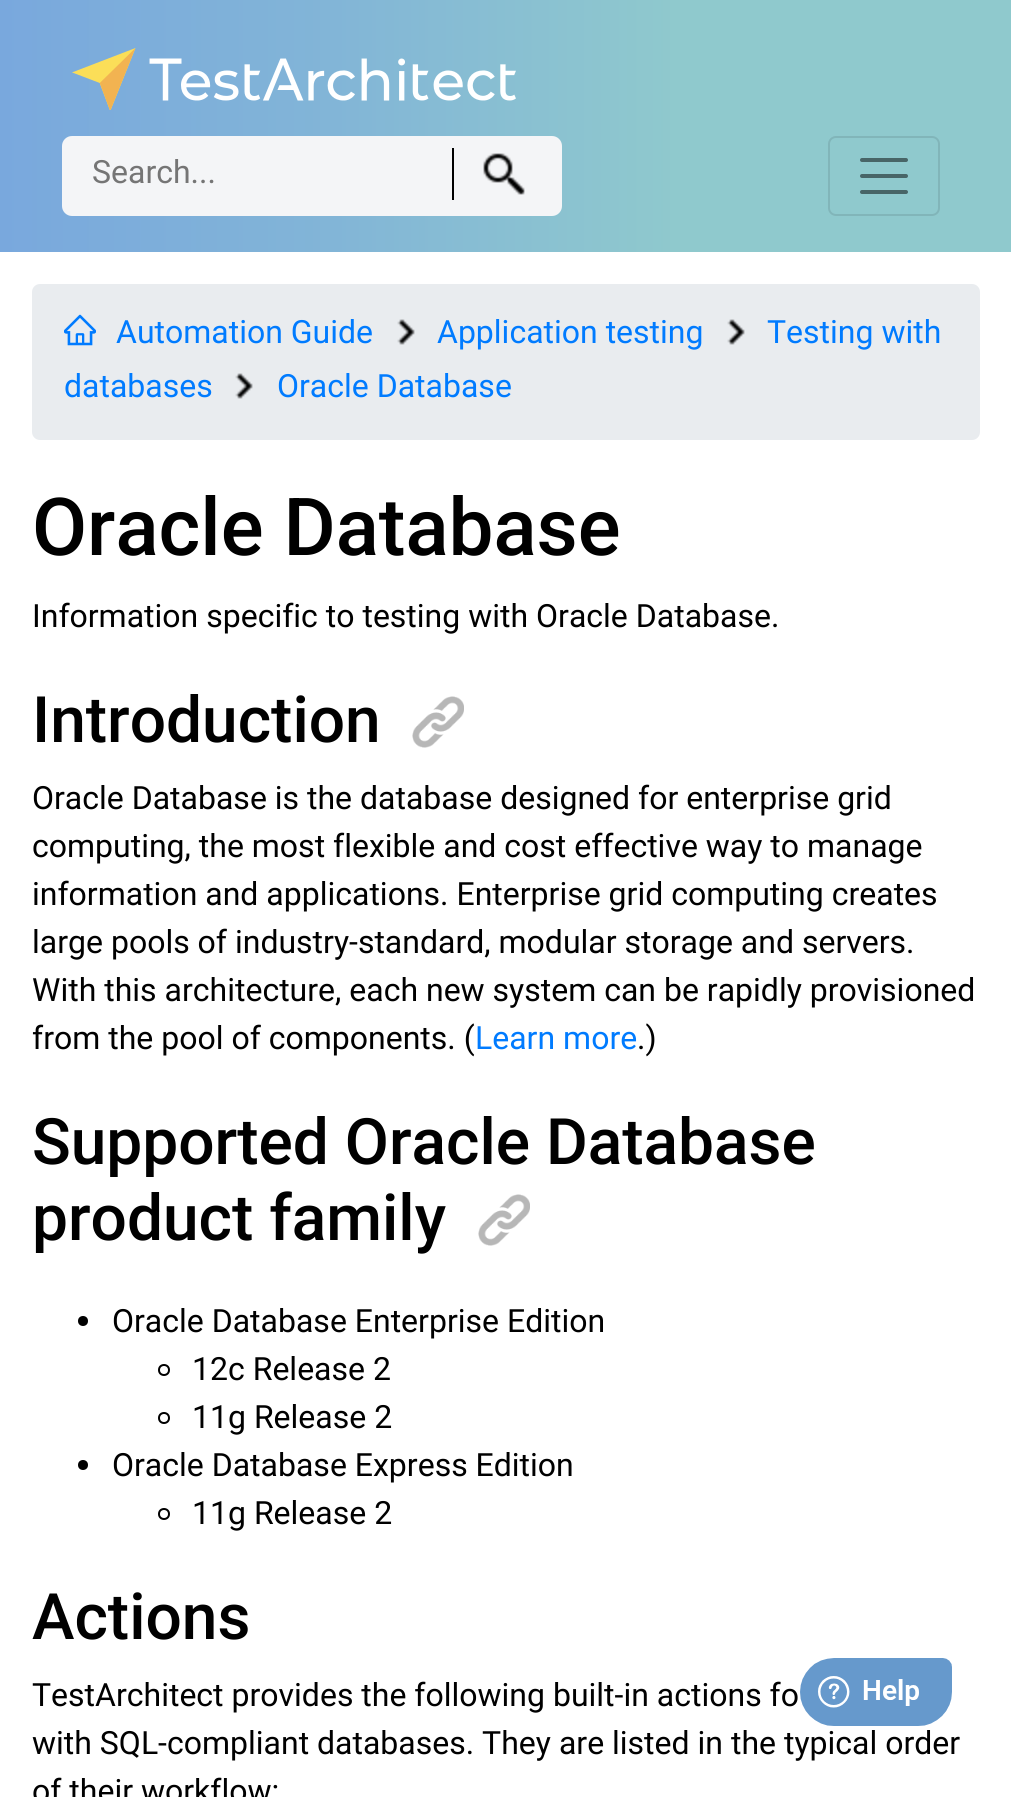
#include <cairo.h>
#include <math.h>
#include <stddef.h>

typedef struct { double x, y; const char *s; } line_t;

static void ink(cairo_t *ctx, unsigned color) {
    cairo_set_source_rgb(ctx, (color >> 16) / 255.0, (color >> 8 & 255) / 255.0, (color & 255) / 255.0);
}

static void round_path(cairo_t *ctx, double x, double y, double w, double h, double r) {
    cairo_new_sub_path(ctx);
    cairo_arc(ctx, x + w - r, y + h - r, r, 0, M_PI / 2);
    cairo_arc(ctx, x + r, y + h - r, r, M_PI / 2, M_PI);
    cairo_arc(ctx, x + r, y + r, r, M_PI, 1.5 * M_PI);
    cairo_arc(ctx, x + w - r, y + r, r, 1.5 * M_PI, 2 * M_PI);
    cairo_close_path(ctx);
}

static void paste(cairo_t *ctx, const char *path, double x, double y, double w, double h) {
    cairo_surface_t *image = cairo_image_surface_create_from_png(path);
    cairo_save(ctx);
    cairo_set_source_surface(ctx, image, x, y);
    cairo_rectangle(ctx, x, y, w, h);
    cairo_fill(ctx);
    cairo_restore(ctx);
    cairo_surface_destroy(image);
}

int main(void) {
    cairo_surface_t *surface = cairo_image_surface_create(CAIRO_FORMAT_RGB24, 1011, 1797);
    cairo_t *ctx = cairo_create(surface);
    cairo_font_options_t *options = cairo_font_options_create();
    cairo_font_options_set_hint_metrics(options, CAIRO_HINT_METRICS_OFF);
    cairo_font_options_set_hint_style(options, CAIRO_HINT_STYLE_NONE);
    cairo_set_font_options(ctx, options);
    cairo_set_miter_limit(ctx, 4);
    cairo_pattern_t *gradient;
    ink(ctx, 0xFFFFFF);
    cairo_paint(ctx);
    gradient = cairo_pattern_create_linear(0, 126, 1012, 126);
    cairo_pattern_add_color_stop_rgba(gradient, 0, 0.475, 0.659, 0.867, 1);
    cairo_pattern_add_color_stop_rgba(gradient, 0.33, 0.51, 0.71, 0.843, 1);
    cairo_pattern_add_color_stop_rgba(gradient, 0.67, 0.561, 0.788, 0.804, 1);
    cairo_pattern_add_color_stop_rgba(gradient, 1, 0.561, 0.788, 0.804, 1);
    cairo_set_source(ctx, gradient);
    cairo_pattern_destroy(gradient);
    cairo_rectangle(ctx, 0, 0, 1011, 252);
    cairo_fill(ctx);
    paste(ctx, "media/1.png", 72, 48, 444, 62);
    ink(ctx, 0xF4F5F7);
    round_path(ctx, 62, 136, 500, 80, 10);
    cairo_fill(ctx);
    cairo_select_font_face(ctx, "Roboto", CAIRO_FONT_SLANT_NORMAL, CAIRO_FONT_WEIGHT_NORMAL);
    cairo_set_font_size(ctx, 32);
    ink(ctx, 0x757575);
    cairo_move_to(ctx, 92, 183);
    cairo_show_text(ctx, "Search...");
    ink(ctx, 0x000000);
    cairo_rectangle(ctx, 452, 148, 2, 52);
    cairo_fill(ctx);
    paste(ctx, "media/2.png", 483, 153, 42, 42);
    round_path(ctx, 829, 137, 110, 78, 7);
    ink(ctx, 0x81B5B9);
    cairo_stroke(ctx);
    cairo_new_path(ctx);
    cairo_move_to(ctx, 862, 160);
    cairo_line_to(ctx, 906, 160);
    cairo_move_to(ctx, 862, 176);
    cairo_line_to(ctx, 906, 176);
    cairo_move_to(ctx, 862, 192);
    cairo_line_to(ctx, 906, 192);
    ink(ctx, 0x486567);
    cairo_set_line_width(ctx, 4);
    cairo_set_line_cap(ctx, CAIRO_LINE_CAP_ROUND);
    cairo_stroke(ctx);
    ink(ctx, 0xE9ECEF);
    round_path(ctx, 32, 284, 948, 156, 8);
    cairo_fill(ctx);
    paste(ctx, "media/3.png", 64, 314, 32, 32);
    ink(ctx, 0x007BFF);
    cairo_move_to(ctx, 116, 343);
    cairo_show_text(ctx, "Automation Guide");
    paste(ctx, "media/4.png", 397, 319, 18, 26);
    cairo_move_to(ctx, 437, 343);
    cairo_show_text(ctx, "Application testing");
    paste(ctx, "media/4.png", 727, 319, 18, 26);
    cairo_move_to(ctx, 767, 343);
    cairo_show_text(ctx, "Testing with");
    cairo_move_to(ctx, 64, 397);
    cairo_show_text(ctx, "databases");
    paste(ctx, "media/4.png", 235, 373, 18, 26);
    cairo_move_to(ctx, 277, 397);
    cairo_show_text(ctx, "Oracle Database");
    cairo_select_font_face(ctx, "Roboto Medium", CAIRO_FONT_SLANT_NORMAL, CAIRO_FONT_WEIGHT_NORMAL);
    cairo_set_font_size(ctx, 80);
    ink(ctx, 0x000000);
    cairo_move_to(ctx, 32, 555);
    cairo_show_text(ctx, "Oracle Database");
    cairo_select_font_face(ctx, "Roboto", CAIRO_FONT_SLANT_NORMAL, CAIRO_FONT_WEIGHT_NORMAL);
    cairo_set_font_size(ctx, 32);
    cairo_move_to(ctx, 32, 627);
    cairo_show_text(ctx, "Information specific to testing with Oracle Database.");
    cairo_select_font_face(ctx, "Roboto Medium", CAIRO_FONT_SLANT_NORMAL, CAIRO_FONT_WEIGHT_NORMAL);
    cairo_set_font_size(ctx, 64);
    cairo_move_to(ctx, 32, 742);
    cairo_show_text(ctx, "Introduction");
    paste(ctx, "media/5.png", 412, 696, 52, 52);
    cairo_select_font_face(ctx, "Roboto", CAIRO_FONT_SLANT_NORMAL, CAIRO_FONT_WEIGHT_NORMAL);
    cairo_set_font_size(ctx, 32);
    {
        static const line_t items[] = {
            {32, 809, "Oracle Database is the database designed for enterprise grid"},
            {32, 857, "computing, the most flexible and cost effective way to manage"},
            {32, 905, "information and applications. Enterprise grid computing creates"},
            {32, 953, "large pools of industry-standard, modular storage and servers."},
            {32, 1001, "With this architecture, each new system can be rapidly provisioned"},
            {32, 1049, "from the pool of components. ("},
        };
        for (size_t i = 0; i < sizeof items / sizeof *items; i++) {
            cairo_move_to(ctx, items[i].x, items[i].y);
            cairo_show_text(ctx, items[i].s);
        }
    }
    ink(ctx, 0x007BFF);
    cairo_move_to(ctx, 475, 1049);
    cairo_show_text(ctx, "Learn more");
    ink(ctx, 0x000000);
    cairo_move_to(ctx, 637, 1049);
    cairo_show_text(ctx, ".)");
    cairo_select_font_face(ctx, "Roboto Medium", CAIRO_FONT_SLANT_NORMAL, CAIRO_FONT_WEIGHT_NORMAL);
    cairo_set_font_size(ctx, 64);
    cairo_move_to(ctx, 32, 1164);
    cairo_show_text(ctx, "Supported Oracle Database");
    cairo_move_to(ctx, 32, 1240);
    cairo_show_text(ctx, "product family");
    paste(ctx, "media/6.png", 478, 1194, 52, 52);
    cairo_arc(ctx, 83, 1321, 5, 0, 2 * M_PI);
    cairo_fill(ctx);
    cairo_select_font_face(ctx, "Roboto", CAIRO_FONT_SLANT_NORMAL, CAIRO_FONT_WEIGHT_NORMAL);
    cairo_set_font_size(ctx, 32);
    cairo_move_to(ctx, 112, 1332);
    cairo_show_text(ctx, "Oracle Database Enterprise Edition");
    cairo_new_path(ctx);
    cairo_arc(ctx, 164, 1370, 5, 0, 2 * M_PI);
    cairo_set_line_width(ctx, 2);
    cairo_set_line_cap(ctx, CAIRO_LINE_CAP_BUTT);
    cairo_stroke(ctx);
    cairo_move_to(ctx, 192, 1380);
    cairo_show_text(ctx, "12c Release 2");
    cairo_new_path(ctx);
    cairo_arc(ctx, 164, 1418, 5, 0, 2 * M_PI);
    cairo_stroke(ctx);
    cairo_move_to(ctx, 192, 1428);
    cairo_show_text(ctx, "11g Release 2");
    cairo_new_path(ctx);
    cairo_arc(ctx, 83, 1465, 5, 0, 2 * M_PI);
    cairo_fill(ctx);
    cairo_move_to(ctx, 112, 1476);
    cairo_show_text(ctx, "Oracle Database Express Edition");
    cairo_new_path(ctx);
    cairo_arc(ctx, 164, 1514, 5, 0, 2 * M_PI);
    cairo_stroke(ctx);
    cairo_move_to(ctx, 192, 1524);
    cairo_show_text(ctx, "11g Release 2");
    cairo_select_font_face(ctx, "Roboto Medium", CAIRO_FONT_SLANT_NORMAL, CAIRO_FONT_WEIGHT_NORMAL);
    cairo_set_font_size(ctx, 64);
    cairo_move_to(ctx, 32, 1639);
    cairo_show_text(ctx, "Actions");
    cairo_select_font_face(ctx, "Roboto", CAIRO_FONT_SLANT_NORMAL, CAIRO_FONT_WEIGHT_NORMAL);
    cairo_set_font_size(ctx, 32);
    {
        static const line_t items[] = {
            {32, 1706, "TestArchitect provides the following built-in actions fo"},
            {32, 1754, "with SQL-compliant databases. They are listed in the typical order"},
            {32, 1802, "of their workflow:"},
        };
        for (size_t i = 0; i < sizeof items / sizeof *items; i++) {
            cairo_move_to(ctx, items[i].x, items[i].y);
            cairo_show_text(ctx, items[i].s);
        }
    }
    paste(ctx, "media/7.png", 800, 1658, 152, 68);
    cairo_surface_write_to_png(surface, "image.png");
    cairo_font_options_destroy(options);
    cairo_destroy(ctx);
    cairo_surface_destroy(surface);
    return 0;
}
